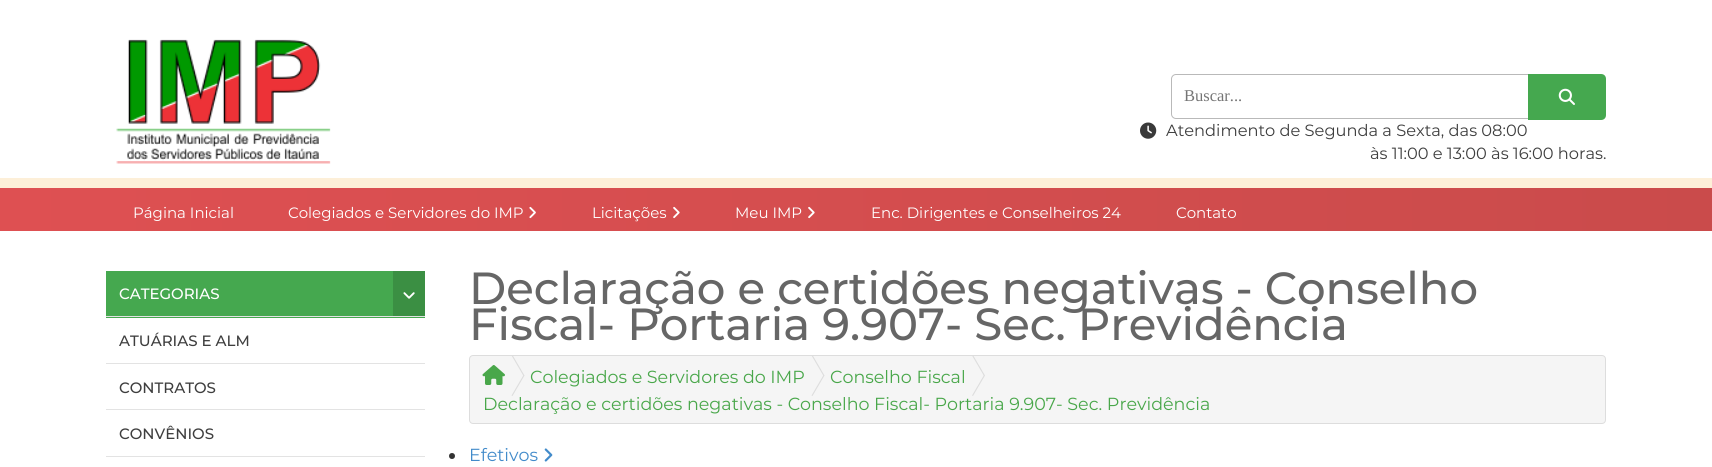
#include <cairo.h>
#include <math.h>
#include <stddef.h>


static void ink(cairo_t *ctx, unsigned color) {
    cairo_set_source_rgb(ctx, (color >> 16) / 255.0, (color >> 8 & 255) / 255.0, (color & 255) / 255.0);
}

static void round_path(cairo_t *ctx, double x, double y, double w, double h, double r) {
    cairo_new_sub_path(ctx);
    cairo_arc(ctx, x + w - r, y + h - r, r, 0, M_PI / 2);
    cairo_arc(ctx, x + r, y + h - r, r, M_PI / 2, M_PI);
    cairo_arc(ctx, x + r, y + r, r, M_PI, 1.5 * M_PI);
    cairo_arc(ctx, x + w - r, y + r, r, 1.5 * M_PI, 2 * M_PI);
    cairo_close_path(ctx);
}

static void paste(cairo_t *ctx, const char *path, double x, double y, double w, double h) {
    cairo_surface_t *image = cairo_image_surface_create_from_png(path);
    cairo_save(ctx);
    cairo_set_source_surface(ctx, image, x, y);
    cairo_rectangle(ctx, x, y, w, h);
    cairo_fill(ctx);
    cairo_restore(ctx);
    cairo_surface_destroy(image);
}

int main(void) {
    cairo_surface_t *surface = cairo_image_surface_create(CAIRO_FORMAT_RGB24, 1712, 467);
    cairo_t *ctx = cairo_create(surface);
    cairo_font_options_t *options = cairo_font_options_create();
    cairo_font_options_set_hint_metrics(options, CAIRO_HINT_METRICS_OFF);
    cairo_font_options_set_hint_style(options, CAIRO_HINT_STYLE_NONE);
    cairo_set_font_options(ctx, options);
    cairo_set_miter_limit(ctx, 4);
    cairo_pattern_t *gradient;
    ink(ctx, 0xFFFFFF);
    cairo_paint(ctx);
    ink(ctx, 0xFDEFD8);
    cairo_rectangle(ctx, 0, 178, 1712, 10);
    cairo_fill(ctx);
    paste(ctx, "media/1.png", 116, 39, 215, 125);
    round_path(ctx, 1171.5, 74.5, 362, 44, 4.5);
    ink(ctx, 0xB9B9B9);
    cairo_set_line_width(ctx, 1);
    cairo_stroke(ctx);
    cairo_select_font_face(ctx, "Liberation Serif", CAIRO_FONT_SLANT_NORMAL, CAIRO_FONT_WEIGHT_NORMAL);
    cairo_set_font_size(ctx, 16.5);
    ink(ctx, 0x757575);
    cairo_move_to(ctx, 1184, 101);
    cairo_show_text(ctx, "Buscar...");
    ink(ctx, 0x45A84F);
    cairo_new_path(ctx);
    cairo_move_to(ctx, 1528, 74);
    cairo_line_to(ctx, 1601, 74);
    cairo_curve_to(ctx, 1604, 74, 1606, 76, 1606, 79);
    cairo_line_to(ctx, 1606, 115);
    cairo_curve_to(ctx, 1606, 118, 1604, 120, 1601, 120);
    cairo_line_to(ctx, 1528, 120);
    cairo_close_path(ctx);
    cairo_fill(ctx);
    paste(ctx, "media/2.png", 1558, 88, 17, 17);
    paste(ctx, "media/3.png", 1140, 122, 17, 17);
    cairo_select_font_face(ctx, "Montserrat", CAIRO_FONT_SLANT_NORMAL, CAIRO_FONT_WEIGHT_NORMAL);
    cairo_set_font_size(ctx, 16.25);
    ink(ctx, 0x3E3E3E);
    cairo_move_to(ctx, 1166, 136);
    cairo_show_text(ctx, "Atendimento de Segunda a Sexta, das 08:00");
    cairo_move_to(ctx, 1370, 159);
    cairo_show_text(ctx, "às 11:00 e 13:00 às 16:00 horas.");
    gradient = cairo_pattern_create_linear(0, 114, 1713, 114);
    cairo_pattern_add_color_stop_rgba(gradient, 0, 0.871, 0.314, 0.322, 1);
    cairo_pattern_add_color_stop_rgba(gradient, 1, 0.792, 0.294, 0.294, 1);
    cairo_set_source(ctx, gradient);
    cairo_pattern_destroy(gradient);
    cairo_rectangle(ctx, 0, 188, 1712, 43);
    cairo_fill(ctx);
    cairo_set_font_size(ctx, 15);
    ink(ctx, 0xFFFFFF);
    cairo_move_to(ctx, 133, 218);
    cairo_show_text(ctx, "Página Inicial");
    cairo_move_to(ctx, 288, 218);
    cairo_show_text(ctx, "Colegiados e Servidores do IMP");
    paste(ctx, "media/4.png", 529, 206, 7, 13);
    cairo_move_to(ctx, 592, 218);
    cairo_show_text(ctx, "Licitações");
    paste(ctx, "media/5.png", 673, 206, 7, 13);
    cairo_move_to(ctx, 735, 218);
    cairo_show_text(ctx, "Meu IMP");
    paste(ctx, "media/6.png", 808, 206, 7, 13);
    cairo_move_to(ctx, 871, 218);
    cairo_show_text(ctx, "Enc. Dirigentes e Conselheiros 24");
    cairo_move_to(ctx, 1176, 218);
    cairo_show_text(ctx, "Contato");
    ink(ctx, 0x45A84F);
    cairo_rectangle(ctx, 106, 271, 319, 47);
    cairo_fill(ctx);
    ink(ctx, 0xE3E3E3);
    cairo_rectangle(ctx, 106, 316, 319, 1);
    cairo_fill(ctx);
    cairo_select_font_face(ctx, "Montserrat Medium", CAIRO_FONT_SLANT_NORMAL, CAIRO_FONT_WEIGHT_NORMAL);
    ink(ctx, 0xFFFFFF);
    cairo_move_to(ctx, 119, 299);
    cairo_show_text(ctx, "CATEGORIAS");
    ink(ctx, 0x3B8F43);
    cairo_rectangle(ctx, 393, 271, 32, 45);
    cairo_fill(ctx);
    paste(ctx, "media/7.png", 403, 292, 12, 7);
    ink(ctx, 0xE3E3E3);
    cairo_rectangle(ctx, 106, 363, 319, 1);
    cairo_fill(ctx);
    ink(ctx, 0x3E3E3E);
    cairo_move_to(ctx, 119, 346);
    cairo_show_text(ctx, "ATUÁRIAS E ALM");
    ink(ctx, 0xE3E3E3);
    cairo_rectangle(ctx, 106, 409, 319, 1);
    cairo_fill(ctx);
    ink(ctx, 0x3E3E3E);
    cairo_move_to(ctx, 119, 393);
    cairo_show_text(ctx, "CONTRATOS");
    ink(ctx, 0xE3E3E3);
    cairo_rectangle(ctx, 106, 456, 319, 1);
    cairo_fill(ctx);
    ink(ctx, 0x3E3E3E);
    cairo_move_to(ctx, 119, 439);
    cairo_show_text(ctx, "CONVÊNIOS");
    cairo_set_font_size(ctx, 45);
    ink(ctx, 0x666666);
    cairo_move_to(ctx, 469, 304);
    cairo_show_text(ctx, "Declaração e certidões negativas - Conselho");
    cairo_move_to(ctx, 469, 340);
    cairo_show_text(ctx, "Fiscal- Portaria 9.907- Sec. Previdência");
    ink(ctx, 0xF5F5F5);
    round_path(ctx, 469.5, 355.5, 1136, 68, 3.5);
    cairo_fill_preserve(ctx);
    ink(ctx, 0xDDDDDD);
    cairo_stroke(ctx);
    paste(ctx, "media/8.png", 482, 365, 23, 20);
    cairo_new_path(ctx);
    cairo_move_to(ctx, 511.5, 355.5);
    cairo_line_to(ctx, 512.5, 355);
    cairo_line_to(ctx, 524.5, 375.5);
    cairo_line_to(ctx, 523.5, 376);
    cairo_close_path(ctx);
    cairo_fill(ctx);
    cairo_new_path(ctx);
    cairo_move_to(ctx, 523.5, 375);
    cairo_line_to(ctx, 524.5, 375.5);
    cairo_line_to(ctx, 512.5, 396);
    cairo_line_to(ctx, 511.5, 395.5);
    cairo_close_path(ctx);
    cairo_fill(ctx);
    cairo_select_font_face(ctx, "Montserrat", CAIRO_FONT_SLANT_NORMAL, CAIRO_FONT_WEIGHT_NORMAL);
    cairo_set_font_size(ctx, 17.5);
    ink(ctx, 0x49A74A);
    cairo_move_to(ctx, 530, 383);
    cairo_show_text(ctx, "Colegiados e Servidores do IMP");
    ink(ctx, 0xDDDDDD);
    cairo_new_path(ctx);
    cairo_move_to(ctx, 811.5, 355.5);
    cairo_line_to(ctx, 812.5, 355);
    cairo_line_to(ctx, 824.5, 375.5);
    cairo_line_to(ctx, 823.5, 376);
    cairo_close_path(ctx);
    cairo_fill(ctx);
    cairo_new_path(ctx);
    cairo_move_to(ctx, 823.5, 375);
    cairo_line_to(ctx, 824.5, 375.5);
    cairo_line_to(ctx, 812.5, 396);
    cairo_line_to(ctx, 811.5, 395.5);
    cairo_close_path(ctx);
    cairo_fill(ctx);
    ink(ctx, 0x49A74A);
    cairo_move_to(ctx, 830, 383);
    cairo_show_text(ctx, "Conselho Fiscal");
    ink(ctx, 0xDDDDDD);
    cairo_new_path(ctx);
    cairo_move_to(ctx, 972, 355.5);
    cairo_line_to(ctx, 973, 355);
    cairo_line_to(ctx, 985, 375.5);
    cairo_line_to(ctx, 984, 376);
    cairo_close_path(ctx);
    cairo_fill(ctx);
    cairo_new_path(ctx);
    cairo_move_to(ctx, 984, 375);
    cairo_line_to(ctx, 985, 375.5);
    cairo_line_to(ctx, 973, 396);
    cairo_line_to(ctx, 972, 395.5);
    cairo_close_path(ctx);
    cairo_fill(ctx);
    ink(ctx, 0x49A74A);
    cairo_move_to(ctx, 483, 410);
    cairo_show_text(ctx, "Declaração e certidões negativas - Conselho Fiscal- Portaria 9.907- Sec. Previdência");
    ink(ctx, 0x333333);
    cairo_new_path(ctx);
    cairo_arc(ctx, 452, 456, 3, 0, 2 * M_PI);
    cairo_fill(ctx);
    ink(ctx, 0x428BCA);
    cairo_move_to(ctx, 469, 461);
    cairo_show_text(ctx, "Efetivos");
    paste(ctx, "media/9.png", 544, 448, 9, 14);
    cairo_surface_write_to_png(surface, "image.png");
    cairo_font_options_destroy(options);
    cairo_destroy(ctx);
    cairo_surface_destroy(surface);
    return 0;
}
